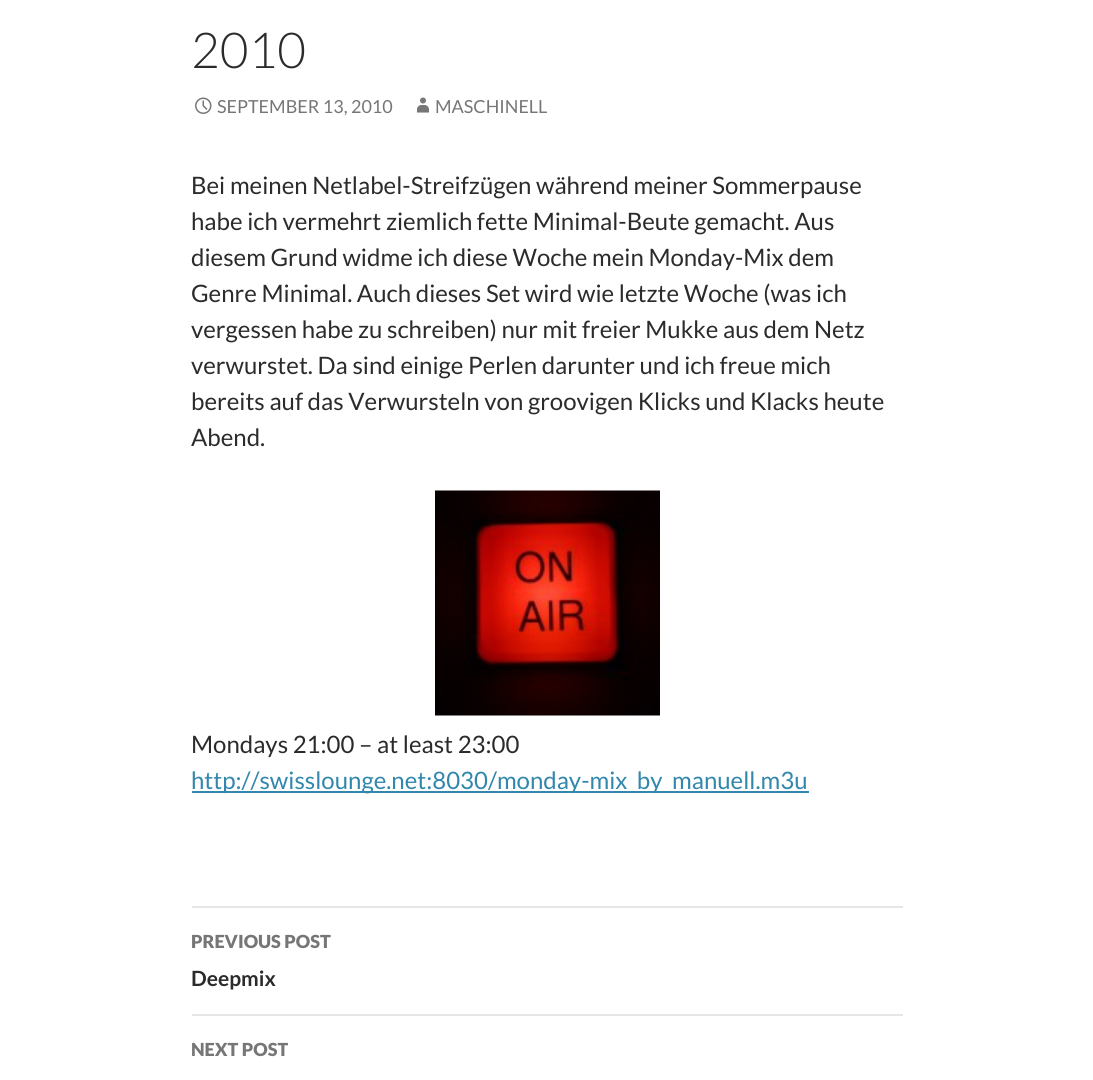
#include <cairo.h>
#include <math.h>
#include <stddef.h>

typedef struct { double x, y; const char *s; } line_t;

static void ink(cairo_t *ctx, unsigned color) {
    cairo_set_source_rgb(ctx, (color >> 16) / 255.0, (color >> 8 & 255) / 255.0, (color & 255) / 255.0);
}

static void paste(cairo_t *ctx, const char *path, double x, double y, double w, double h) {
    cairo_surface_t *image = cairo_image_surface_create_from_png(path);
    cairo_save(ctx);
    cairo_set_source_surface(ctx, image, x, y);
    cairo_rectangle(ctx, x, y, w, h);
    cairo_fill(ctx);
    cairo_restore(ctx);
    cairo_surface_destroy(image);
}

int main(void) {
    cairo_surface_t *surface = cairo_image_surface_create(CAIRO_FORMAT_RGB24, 1093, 1080);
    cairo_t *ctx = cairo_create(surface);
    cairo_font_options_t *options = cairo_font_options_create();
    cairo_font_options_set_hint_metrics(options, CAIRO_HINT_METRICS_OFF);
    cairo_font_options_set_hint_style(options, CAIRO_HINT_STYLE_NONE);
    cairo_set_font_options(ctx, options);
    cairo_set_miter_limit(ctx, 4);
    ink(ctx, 0xFFFFFF);
    cairo_paint(ctx);
    cairo_select_font_face(ctx, "Lato Light", CAIRO_FONT_SLANT_NORMAL, CAIRO_FONT_WEIGHT_NORMAL);
    cairo_set_font_size(ctx, 49.5);
    ink(ctx, 0x2B2B2B);
    cairo_move_to(ctx, 191, 68);
    cairo_show_text(ctx, "2010");
    paste(ctx, "media/1.png", 195, 97, 17, 17);
    cairo_select_font_face(ctx, "Lato", CAIRO_FONT_SLANT_NORMAL, CAIRO_FONT_WEIGHT_NORMAL);
    cairo_set_font_size(ctx, 18);
    ink(ctx, 0x767676);
    cairo_move_to(ctx, 217, 113);
    cairo_show_text(ctx, "SEPTEMBER 13, 2010");
    paste(ctx, "media/2.png", 417, 97, 12, 16);
    cairo_move_to(ctx, 435, 113);
    cairo_show_text(ctx, "MASCHINELL");
    cairo_set_font_size(ctx, 24);
    ink(ctx, 0x2B2B2B);
    {
        static const line_t items[] = {
            {191, 194, "Bei meinen Netlabel-Streifzügen während meiner Sommerpause"},
            {191, 230, "habe ich vermehrt ziemlich fette Minimal-Beute gemacht. Aus"},
            {191, 266, "diesem Grund widme ich diese Woche mein Monday-Mix dem"},
            {191, 302, "Genre Minimal. Auch dieses Set wird wie letzte Woche (was ich"},
            {191, 338, "vergessen habe zu schreiben) nur mit freier Mukke aus dem Netz"},
            {191, 374, "verwurstet. Da sind einige Perlen darunter und ich freue mich"},
            {191, 410, "bereits auf das Verwursteln von groovigen Klicks und Klacks heute"},
            {191, 446, "Abend."},
        };
        for (size_t i = 0; i < sizeof items / sizeof *items; i++) {
            cairo_move_to(ctx, items[i].x, items[i].y);
            cairo_show_text(ctx, items[i].s);
        }
    }
    paste(ctx, "media/3.png", 435, 490, 225, 226);
    cairo_move_to(ctx, 191, 753);
    cairo_show_text(ctx, "Mondays 21:00 – at least 23:00");
    ink(ctx, 0x3187AC);
    cairo_rectangle(ctx, 192, 791, 617, 2);
    cairo_fill(ctx);
    cairo_move_to(ctx, 191, 789);
    cairo_show_text(ctx, "http://swisslounge.net:8030/monday-mix_by_manuell.m3u");
    ink(ctx, 0xE6E6E6);
    cairo_rectangle(ctx, 192, 906, 711, 2);
    cairo_fill(ctx);
    cairo_rectangle(ctx, 192, 1014, 711, 2);
    cairo_fill(ctx);
    cairo_select_font_face(ctx, "Lato Black", CAIRO_FONT_SLANT_NORMAL, CAIRO_FONT_WEIGHT_NORMAL);
    cairo_set_font_size(ctx, 18);
    ink(ctx, 0x767676);
    cairo_move_to(ctx, 191, 948);
    cairo_show_text(ctx, "PREVIOUS POST");
    cairo_select_font_face(ctx, "Lato", CAIRO_FONT_SLANT_NORMAL, CAIRO_FONT_WEIGHT_BOLD);
    cairo_set_font_size(ctx, 21);
    ink(ctx, 0x2B2B2B);
    cairo_move_to(ctx, 191, 986);
    cairo_show_text(ctx, "Deepmix");
    cairo_select_font_face(ctx, "Lato Black", CAIRO_FONT_SLANT_NORMAL, CAIRO_FONT_WEIGHT_NORMAL);
    cairo_set_font_size(ctx, 18);
    ink(ctx, 0x767676);
    cairo_move_to(ctx, 191, 1056);
    cairo_show_text(ctx, "NEXT POST");
    cairo_surface_write_to_png(surface, "image.png");
    cairo_font_options_destroy(options);
    cairo_destroy(ctx);
    cairo_surface_destroy(surface);
    return 0;
}
